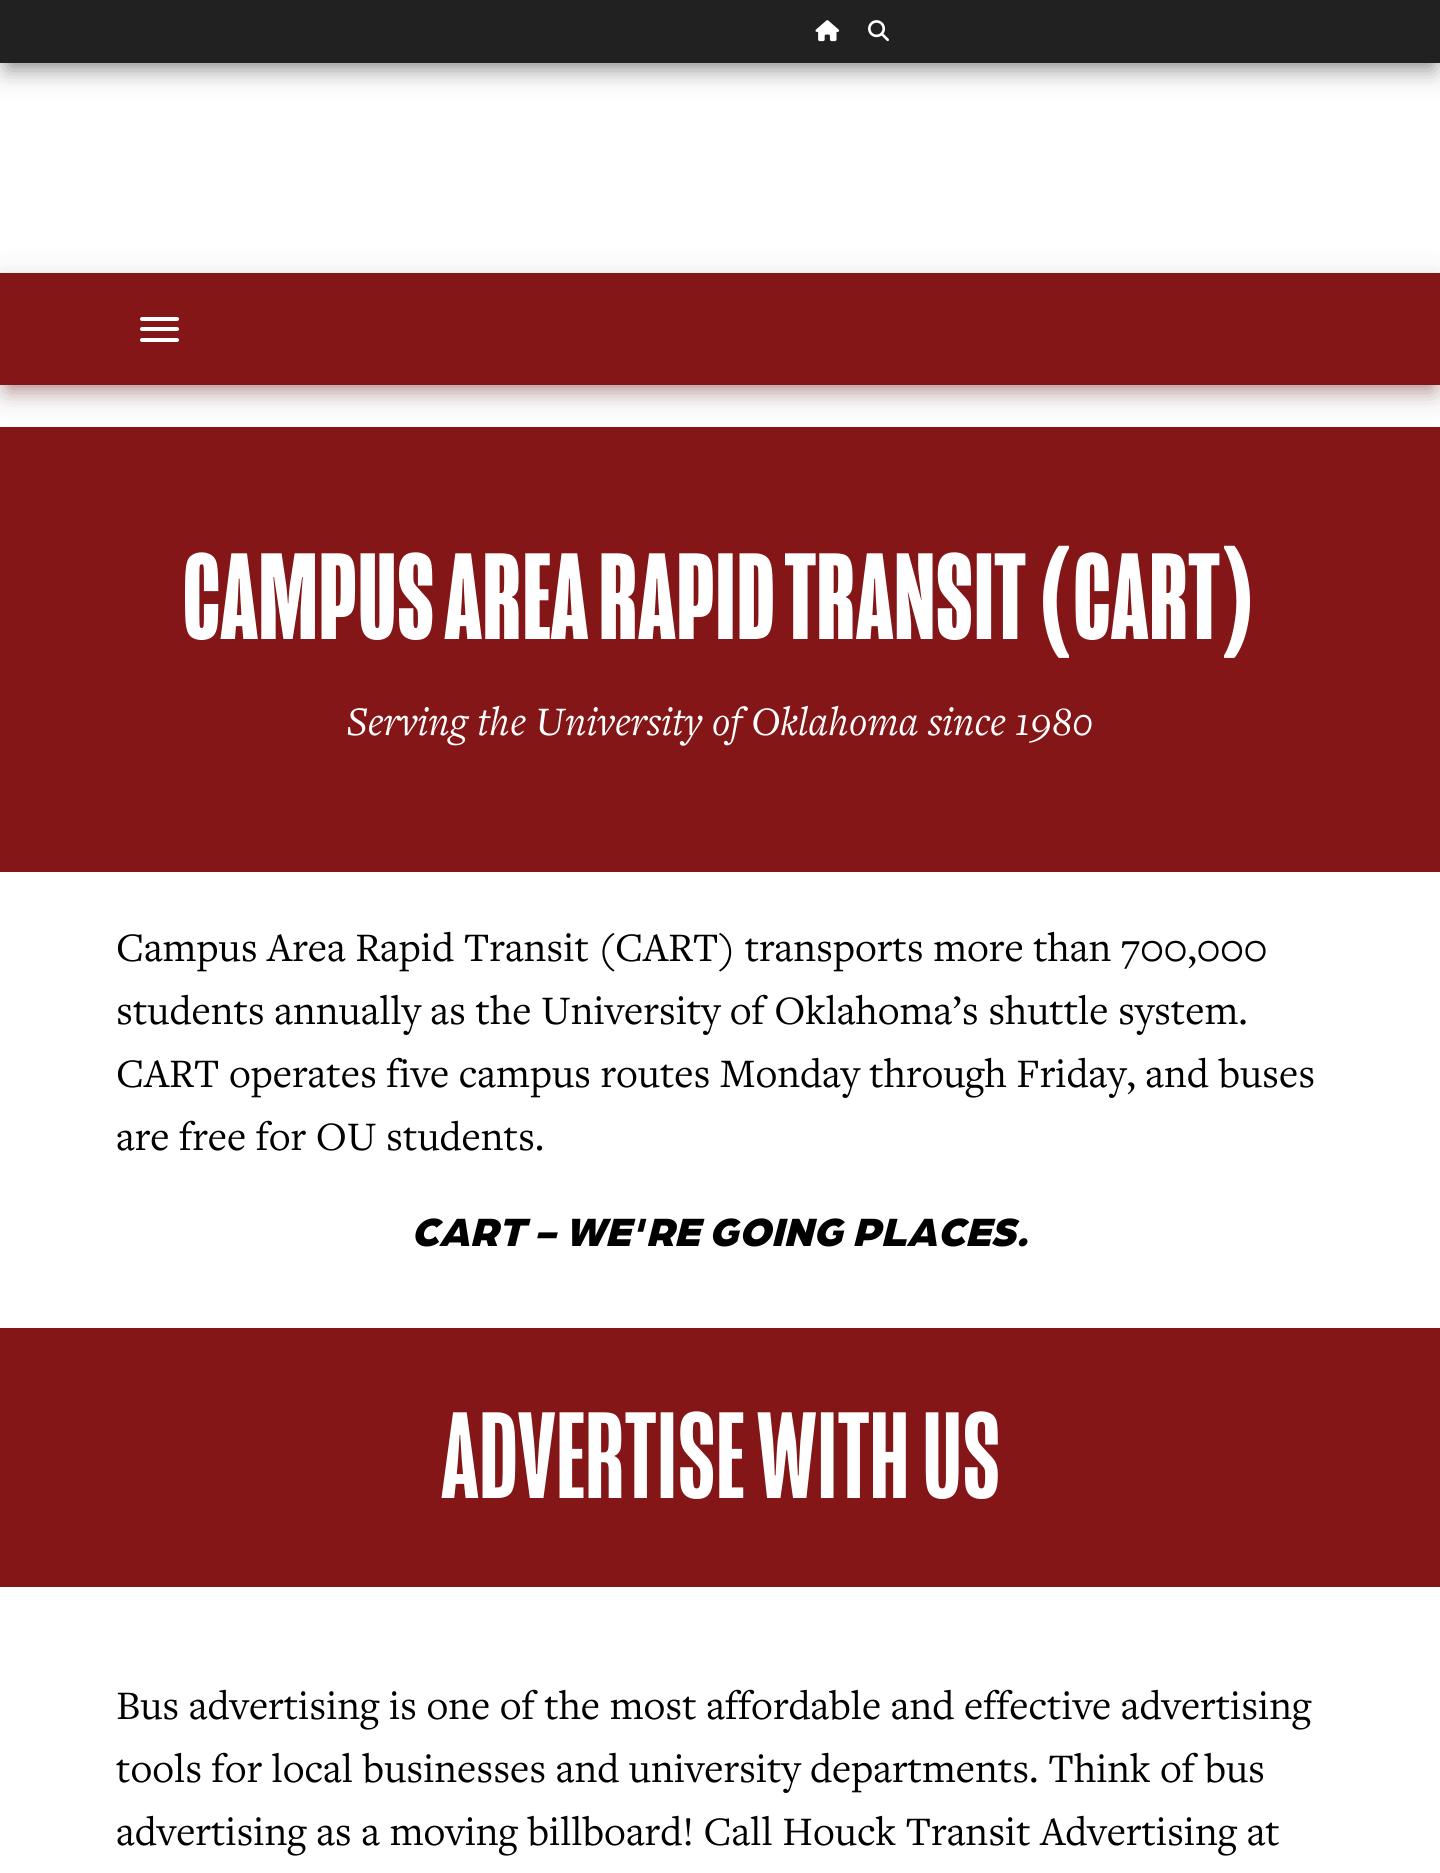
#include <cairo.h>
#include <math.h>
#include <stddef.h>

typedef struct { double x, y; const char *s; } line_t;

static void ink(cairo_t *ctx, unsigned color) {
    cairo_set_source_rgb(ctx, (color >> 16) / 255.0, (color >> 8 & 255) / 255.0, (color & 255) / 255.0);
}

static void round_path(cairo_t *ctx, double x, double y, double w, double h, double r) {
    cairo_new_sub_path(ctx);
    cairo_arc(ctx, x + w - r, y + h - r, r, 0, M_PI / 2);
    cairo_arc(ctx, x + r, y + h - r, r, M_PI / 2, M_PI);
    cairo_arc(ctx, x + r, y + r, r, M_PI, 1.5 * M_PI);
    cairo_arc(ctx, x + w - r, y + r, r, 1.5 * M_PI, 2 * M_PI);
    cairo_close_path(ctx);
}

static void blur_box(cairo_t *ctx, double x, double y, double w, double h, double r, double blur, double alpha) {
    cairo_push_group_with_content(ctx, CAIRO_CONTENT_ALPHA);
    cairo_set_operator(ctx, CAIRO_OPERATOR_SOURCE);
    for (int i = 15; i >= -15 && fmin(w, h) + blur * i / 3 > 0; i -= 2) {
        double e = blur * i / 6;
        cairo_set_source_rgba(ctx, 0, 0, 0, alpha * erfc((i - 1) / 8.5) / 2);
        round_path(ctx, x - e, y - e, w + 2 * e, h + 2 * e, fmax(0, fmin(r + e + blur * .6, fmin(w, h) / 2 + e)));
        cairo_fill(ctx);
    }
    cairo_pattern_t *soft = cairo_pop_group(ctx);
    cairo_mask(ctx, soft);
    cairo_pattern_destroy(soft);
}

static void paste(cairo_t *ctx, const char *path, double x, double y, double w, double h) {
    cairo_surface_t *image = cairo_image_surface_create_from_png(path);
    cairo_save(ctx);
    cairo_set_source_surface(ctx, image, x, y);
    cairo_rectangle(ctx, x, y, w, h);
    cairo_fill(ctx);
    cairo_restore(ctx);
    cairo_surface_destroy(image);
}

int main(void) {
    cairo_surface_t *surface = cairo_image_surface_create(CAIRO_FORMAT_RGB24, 1440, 1873);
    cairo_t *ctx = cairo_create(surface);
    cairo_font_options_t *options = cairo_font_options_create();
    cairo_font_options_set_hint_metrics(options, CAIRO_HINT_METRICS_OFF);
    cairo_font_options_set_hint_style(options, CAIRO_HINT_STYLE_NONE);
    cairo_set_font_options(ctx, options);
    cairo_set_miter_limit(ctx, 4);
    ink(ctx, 0xFFFFFF);
    cairo_paint(ctx);
    ink(ctx, 0x212121);
    blur_box(ctx, 9, 21, 1423, 46, 0, 10.5, 0.46);
    ink(ctx, 0x000000);
    blur_box(ctx, 0, 7, 1440, 63, 0, 17.5, 0.14);
    ink(ctx, 0x212121);
    cairo_rectangle(ctx, 0, 0, 1440, 63);
    cairo_fill(ctx);
    paste(ctx, "media/1.png", 815, 20, 25, 22);
    paste(ctx, "media/2.png", 868, 20, 21, 22);
    ink(ctx, 0x841617);
    blur_box(ctx, 9, 294, 1423, 95, 0, 10.5, 0.46);
    ink(ctx, 0x841617);
    cairo_rectangle(ctx, 0, 427, 1440, 445);
    cairo_fill(ctx);
    ink(ctx, 0x000000);
    blur_box(ctx, 0, 280, 1440, 112, 0, 17.5, 0.14);
    ink(ctx, 0x841617);
    cairo_rectangle(ctx, 0, 273, 1440, 112);
    cairo_fill(ctx);
    ink(ctx, 0xFFFFFF);
    round_path(ctx, 140, 317, 39, 4, 2);
    cairo_fill(ctx);
    round_path(ctx, 140, 327, 39, 4, 2);
    cairo_fill(ctx);
    round_path(ctx, 140, 338, 39, 4, 2);
    cairo_fill(ctx);
    cairo_select_font_face(ctx, "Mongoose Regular", CAIRO_FONT_SLANT_NORMAL, CAIRO_FONT_WEIGHT_BOLD);
    cairo_set_font_size(ctx, 126);
    cairo_move_to(ctx, 183, 639);
    cairo_show_text(ctx, "CAMPUS AREA RAPID TRANSIT (CART)");
    cairo_select_font_face(ctx, "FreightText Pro", CAIRO_FONT_SLANT_ITALIC, CAIRO_FONT_WEIGHT_NORMAL);
    cairo_set_font_size(ctx, 42);
    cairo_move_to(ctx, 347, 735);
    cairo_show_text(ctx, "Serving the University of Oklahoma since 1980");
    cairo_select_font_face(ctx, "FreightText Pro", CAIRO_FONT_SLANT_NORMAL, CAIRO_FONT_WEIGHT_NORMAL);
    ink(ctx, 0x000000);
    {
        static const line_t items[] = {
            {116, 961, "Campus Area Rapid Transit (CART) transports more than 700,000"},
            {116, 1024, "students annually as the University of Oklahoma’s shuttle system."},
            {116, 1087, "CART operates five campus routes Monday through Friday, and buses"},
            {116, 1150, "are free for OU students."},
        };
        for (size_t i = 0; i < sizeof items / sizeof *items; i++) {
            cairo_move_to(ctx, items[i].x, items[i].y);
            cairo_show_text(ctx, items[i].s);
        }
    }
    cairo_select_font_face(ctx, "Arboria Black", CAIRO_FONT_SLANT_ITALIC, CAIRO_FONT_WEIGHT_NORMAL);
    cairo_move_to(ctx, 411, 1246);
    cairo_show_text(ctx, "CART - WE'RE GOING PLACES.");
    ink(ctx, 0x841617);
    cairo_rectangle(ctx, 0, 1328, 1440, 259);
    cairo_fill(ctx);
    cairo_select_font_face(ctx, "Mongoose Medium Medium", CAIRO_FONT_SLANT_NORMAL, CAIRO_FONT_WEIGHT_NORMAL);
    cairo_set_font_size(ctx, 126);
    ink(ctx, 0xFFFFFF);
    cairo_move_to(ctx, 441, 1498);
    cairo_show_text(ctx, "ADVERTISE WITH US");
    cairo_select_font_face(ctx, "FreightText Pro", CAIRO_FONT_SLANT_NORMAL, CAIRO_FONT_WEIGHT_NORMAL);
    cairo_set_font_size(ctx, 42);
    ink(ctx, 0x000000);
    {
        static const line_t items[] = {
            {116, 1719, "Bus advertising is one of the most affordable and effective advertising"},
            {116, 1782, "tools for local businesses and university departments. Think of bus"},
            {116, 1845, "advertising as a moving billboard! Call Houck Transit Advertising at"},
        };
        for (size_t i = 0; i < sizeof items / sizeof *items; i++) {
            cairo_move_to(ctx, items[i].x, items[i].y);
            cairo_show_text(ctx, items[i].s);
        }
    }
    cairo_surface_write_to_png(surface, "image.png");
    cairo_font_options_destroy(options);
    cairo_destroy(ctx);
    cairo_surface_destroy(surface);
    return 0;
}
